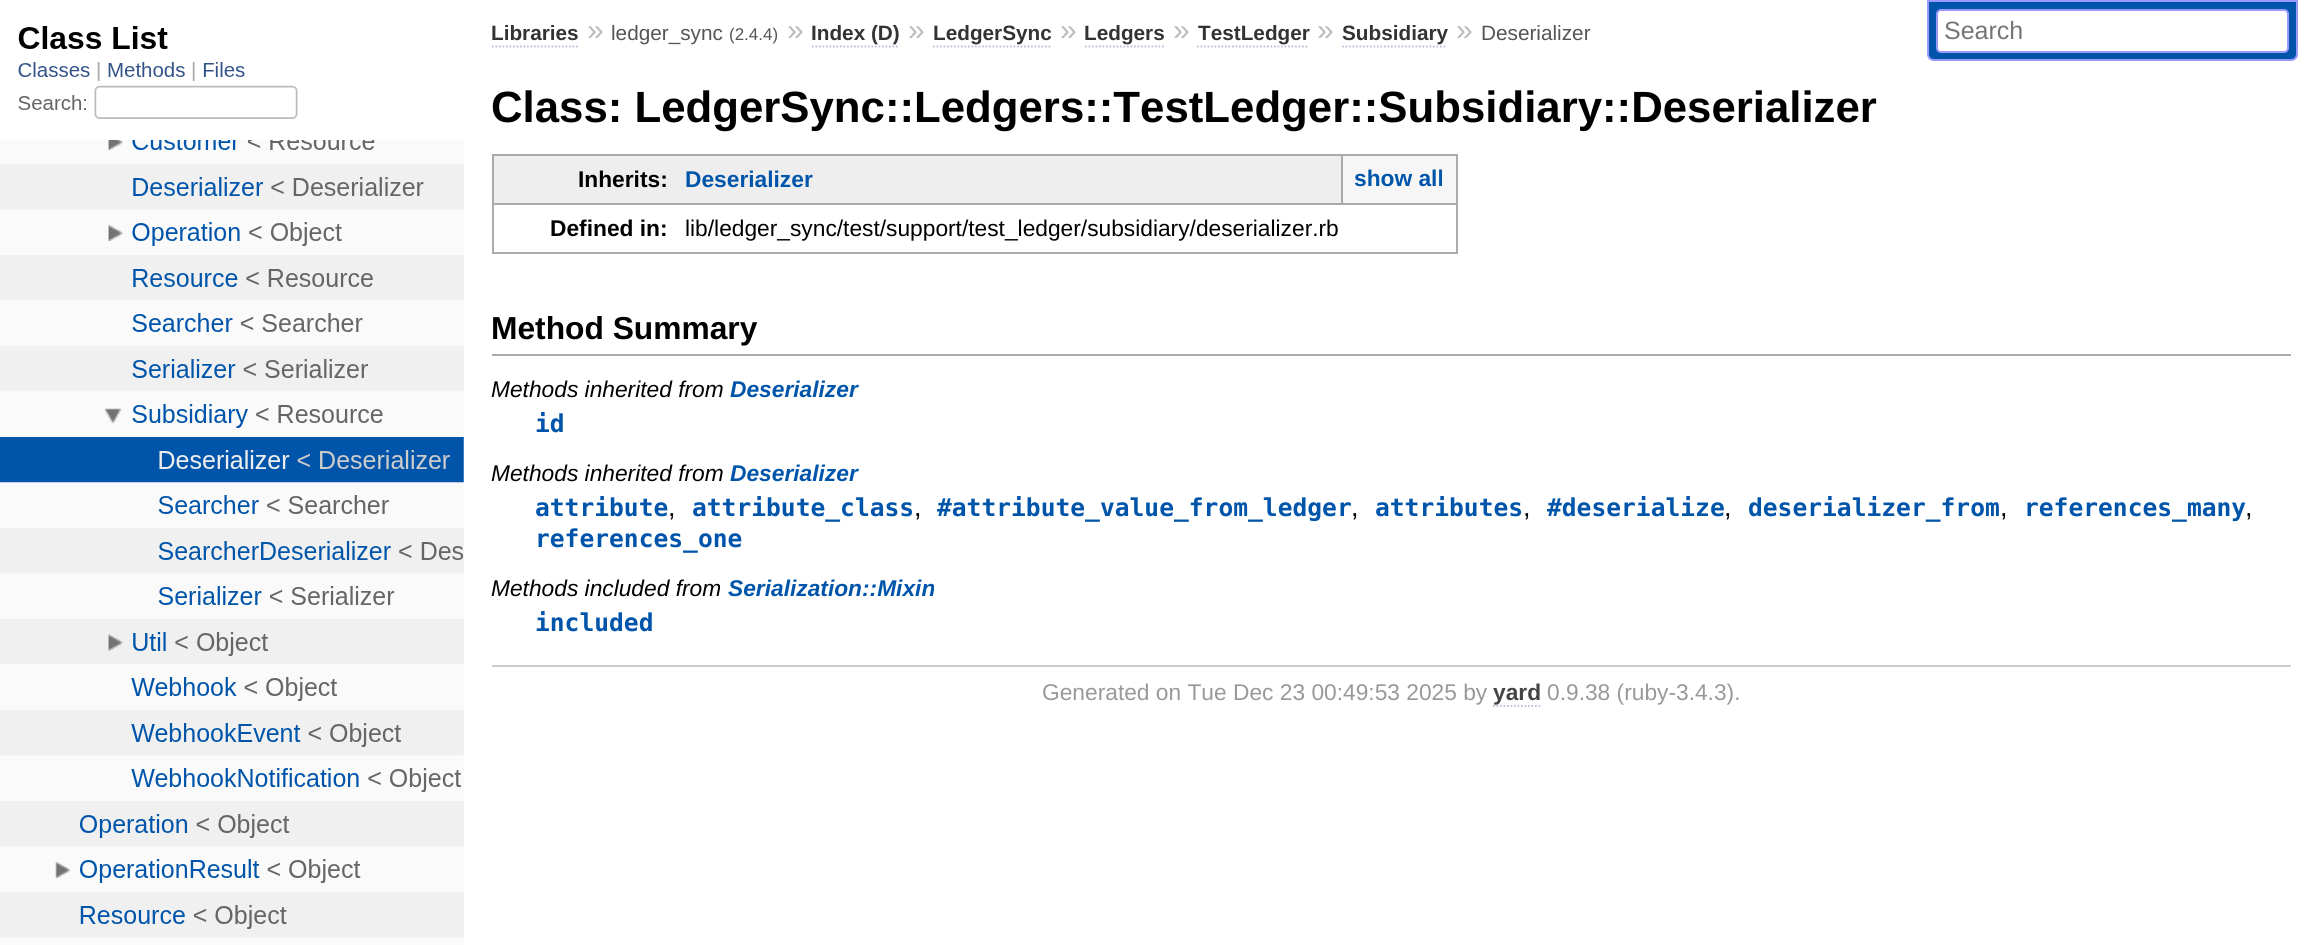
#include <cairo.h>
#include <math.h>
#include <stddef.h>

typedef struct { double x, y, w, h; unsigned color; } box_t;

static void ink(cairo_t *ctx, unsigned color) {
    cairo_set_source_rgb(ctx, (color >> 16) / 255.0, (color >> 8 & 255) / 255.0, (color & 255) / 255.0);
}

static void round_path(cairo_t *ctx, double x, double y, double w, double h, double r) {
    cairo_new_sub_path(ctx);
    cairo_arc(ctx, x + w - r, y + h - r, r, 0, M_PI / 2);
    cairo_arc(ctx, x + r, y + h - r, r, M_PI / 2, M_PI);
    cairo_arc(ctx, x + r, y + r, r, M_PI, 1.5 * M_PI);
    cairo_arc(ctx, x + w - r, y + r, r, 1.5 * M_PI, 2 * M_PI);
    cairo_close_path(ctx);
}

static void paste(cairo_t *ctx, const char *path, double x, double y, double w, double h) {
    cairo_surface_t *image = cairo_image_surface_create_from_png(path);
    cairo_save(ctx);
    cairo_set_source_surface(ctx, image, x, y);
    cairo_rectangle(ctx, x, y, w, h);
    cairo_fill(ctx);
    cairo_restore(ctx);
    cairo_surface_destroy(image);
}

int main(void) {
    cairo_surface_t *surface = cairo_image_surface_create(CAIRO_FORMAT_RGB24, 2318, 945);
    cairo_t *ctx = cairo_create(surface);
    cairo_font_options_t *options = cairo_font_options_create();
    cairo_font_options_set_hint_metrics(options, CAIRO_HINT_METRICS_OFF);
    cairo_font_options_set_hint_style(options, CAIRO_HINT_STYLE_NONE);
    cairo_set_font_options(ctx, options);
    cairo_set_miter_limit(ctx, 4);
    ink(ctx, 0xFFFFFF);
    cairo_paint(ctx);
    paste(ctx, "media/1.png", 0, 0, 464, 945);
    cairo_select_font_face(ctx, "Liberation Sans", CAIRO_FONT_SLANT_NORMAL, CAIRO_FONT_WEIGHT_BOLD);
    cairo_set_font_size(ctx, 20.75);
    ink(ctx, 0x333333);
    cairo_move_to(ctx, 491, 40);
    cairo_show_text(ctx, "Libraries");
    cairo_new_path(ctx);
    cairo_move_to(ctx, 492, 46.5);
    cairo_line_to(ctx, 579, 46.5);
    ink(ctx, 0xBBBBDD);
    cairo_set_line_width(ctx, 1.8);
    cairo_set_dash(ctx, (double[]){1.75, 1.75}, 2, 0);
    cairo_stroke(ctx);
    cairo_select_font_face(ctx, "Liberation Sans", CAIRO_FONT_SLANT_NORMAL, CAIRO_FONT_WEIGHT_NORMAL);
    cairo_set_font_size(ctx, 30);
    ink(ctx, 0xBBBBBB);
    cairo_move_to(ctx, 587, 40);
    cairo_show_text(ctx, "»");
    cairo_set_font_size(ctx, 20.75);
    ink(ctx, 0x555555);
    cairo_move_to(ctx, 611, 40);
    cairo_show_text(ctx, "ledger_sync");
    cairo_set_font_size(ctx, 17);
    cairo_move_to(ctx, 729, 40);
    cairo_show_text(ctx, "(2.4.4)");
    cairo_set_font_size(ctx, 30);
    ink(ctx, 0xBBBBBB);
    cairo_move_to(ctx, 787, 40);
    cairo_show_text(ctx, "»");
    cairo_select_font_face(ctx, "Liberation Sans", CAIRO_FONT_SLANT_NORMAL, CAIRO_FONT_WEIGHT_BOLD);
    cairo_set_font_size(ctx, 20.75);
    ink(ctx, 0x333333);
    cairo_move_to(ctx, 811, 40);
    cairo_show_text(ctx, "Index (D)");
    cairo_new_path(ctx);
    cairo_move_to(ctx, 812, 46.5);
    cairo_line_to(ctx, 899.5, 46.5);
    ink(ctx, 0xBBBBDD);
    cairo_stroke(ctx);
    cairo_select_font_face(ctx, "Liberation Sans", CAIRO_FONT_SLANT_NORMAL, CAIRO_FONT_WEIGHT_NORMAL);
    cairo_set_font_size(ctx, 30);
    ink(ctx, 0xBBBBBB);
    cairo_move_to(ctx, 908, 40);
    cairo_show_text(ctx, "»");
    cairo_select_font_face(ctx, "Liberation Sans", CAIRO_FONT_SLANT_NORMAL, CAIRO_FONT_WEIGHT_BOLD);
    cairo_set_font_size(ctx, 20.75);
    ink(ctx, 0x333333);
    cairo_move_to(ctx, 933, 40);
    cairo_show_text(ctx, "LedgerSync");
    cairo_new_path(ctx);
    cairo_move_to(ctx, 933, 46.5);
    cairo_line_to(ctx, 1052, 46.5);
    ink(ctx, 0xBBBBDD);
    cairo_stroke(ctx);
    cairo_select_font_face(ctx, "Liberation Sans", CAIRO_FONT_SLANT_NORMAL, CAIRO_FONT_WEIGHT_NORMAL);
    cairo_set_font_size(ctx, 30);
    ink(ctx, 0xBBBBBB);
    cairo_move_to(ctx, 1060, 40);
    cairo_show_text(ctx, "»");
    cairo_select_font_face(ctx, "Liberation Sans", CAIRO_FONT_SLANT_NORMAL, CAIRO_FONT_WEIGHT_BOLD);
    cairo_set_font_size(ctx, 20.75);
    ink(ctx, 0x333333);
    cairo_move_to(ctx, 1084, 40);
    cairo_show_text(ctx, "Ledgers");
    cairo_new_path(ctx);
    cairo_move_to(ctx, 1085, 46.5);
    cairo_line_to(ctx, 1165.5, 46.5);
    ink(ctx, 0xBBBBDD);
    cairo_stroke(ctx);
    cairo_select_font_face(ctx, "Liberation Sans", CAIRO_FONT_SLANT_NORMAL, CAIRO_FONT_WEIGHT_NORMAL);
    cairo_set_font_size(ctx, 30);
    ink(ctx, 0xBBBBBB);
    cairo_move_to(ctx, 1173, 40);
    cairo_show_text(ctx, "»");
    cairo_select_font_face(ctx, "Liberation Sans", CAIRO_FONT_SLANT_NORMAL, CAIRO_FONT_WEIGHT_BOLD);
    cairo_set_font_size(ctx, 20.75);
    ink(ctx, 0x333333);
    cairo_move_to(ctx, 1198, 40);
    cairo_show_text(ctx, "TestLedger");
    cairo_new_path(ctx);
    cairo_move_to(ctx, 1197, 46.5);
    cairo_line_to(ctx, 1309, 46.5);
    ink(ctx, 0xBBBBDD);
    cairo_stroke(ctx);
    cairo_select_font_face(ctx, "Liberation Sans", CAIRO_FONT_SLANT_NORMAL, CAIRO_FONT_WEIGHT_NORMAL);
    cairo_set_font_size(ctx, 30);
    ink(ctx, 0xBBBBBB);
    cairo_move_to(ctx, 1317, 40);
    cairo_show_text(ctx, "»");
    cairo_select_font_face(ctx, "Liberation Sans", CAIRO_FONT_SLANT_NORMAL, CAIRO_FONT_WEIGHT_BOLD);
    cairo_set_font_size(ctx, 20.75);
    ink(ctx, 0x333333);
    cairo_move_to(ctx, 1342, 40);
    cairo_show_text(ctx, "Subsidiary");
    cairo_new_path(ctx);
    cairo_move_to(ctx, 1342, 46.5);
    cairo_line_to(ctx, 1447, 46.5);
    ink(ctx, 0xBBBBDD);
    cairo_stroke(ctx);
    cairo_select_font_face(ctx, "Liberation Sans", CAIRO_FONT_SLANT_NORMAL, CAIRO_FONT_WEIGHT_NORMAL);
    cairo_set_font_size(ctx, 30);
    ink(ctx, 0xBBBBBB);
    cairo_move_to(ctx, 1456, 40);
    cairo_show_text(ctx, "»");
    cairo_set_font_size(ctx, 20.75);
    ink(ctx, 0x555555);
    cairo_move_to(ctx, 1481, 40);
    cairo_show_text(ctx, "Deserializer");
    ink(ctx, 0x0055AA);
    cairo_new_path(ctx);
    cairo_move_to(ctx, 1928, 1);
    cairo_line_to(ctx, 2297, 1);
    cairo_line_to(ctx, 2297, 54);
    cairo_curve_to(ctx, 2297, 57.5, 2294.5, 60, 2291, 60);
    cairo_line_to(ctx, 1934, 60);
    cairo_curve_to(ctx, 1930.5, 60, 1928, 57.5, 1928, 54);
    cairo_close_path(ctx);
    cairo_fill_preserve(ctx);
    ink(ctx, 0x9999FF);
    cairo_set_line_width(ctx, 2);
    cairo_set_dash(ctx, NULL, 0, 0);
    cairo_stroke(ctx);
    ink(ctx, 0xFFFFFF);
    round_path(ctx, 1937, 10, 351, 42, 4);
    cairo_fill_preserve(ctx);
    ink(ctx, 0x9999FF);
    cairo_stroke(ctx);
    cairo_set_font_size(ctx, 25);
    ink(ctx, 0x757575);
    cairo_move_to(ctx, 1944, 39);
    cairo_show_text(ctx, "Search");
    cairo_select_font_face(ctx, "Liberation Sans", CAIRO_FONT_SLANT_NORMAL, CAIRO_FONT_WEIGHT_BOLD);
    cairo_set_font_size(ctx, 43.75);
    ink(ctx, 0x000000);
    cairo_move_to(ctx, 491, 122);
    cairo_show_text(ctx, "Class: LedgerSync::Ledgers::TestLedger::Subsidiary::Deserializer");
    {
        static const box_t items[] = {
            {494, 156, 847, 47, 0xEEEEEE},
            {492, 154, 966, 2, 0xAAAAAA},
            {492, 154, 2, 49, 0xAAAAAA},
        };
        for (size_t i = 0; i < sizeof items / sizeof *items; i++) {
            ink(ctx, items[i].color);
            cairo_rectangle(ctx, items[i].x, items[i].y, items[i].w, items[i].h);
            cairo_fill(ctx);
        }
    }
    cairo_set_font_size(ctx, 22.75);
    ink(ctx, 0x000000);
    cairo_move_to(ctx, 578, 187);
    cairo_show_text(ctx, "Inherits:");
    ink(ctx, 0xAAAAAA);
    cairo_rectangle(ctx, 492, 203, 966, 2);
    cairo_fill(ctx);
    cairo_rectangle(ctx, 1456, 154, 2, 100);
    cairo_fill(ctx);
    ink(ctx, 0x0055AA);
    cairo_move_to(ctx, 685, 187);
    cairo_show_text(ctx, "Deserializer");
    ink(ctx, 0xF6F6F6);
    cairo_rectangle(ctx, 1343, 156, 113, 47);
    cairo_fill(ctx);
    ink(ctx, 0xAAAAAA);
    cairo_rectangle(ctx, 1341, 156, 2, 47);
    cairo_fill(ctx);
    ink(ctx, 0x0055AA);
    cairo_move_to(ctx, 1354, 186);
    cairo_show_text(ctx, "show all");
    ink(ctx, 0xAAAAAA);
    cairo_rectangle(ctx, 492, 252, 194, 2);
    cairo_fill(ctx);
    cairo_rectangle(ctx, 492, 203, 2, 51);
    cairo_fill(ctx);
    ink(ctx, 0x000000);
    cairo_move_to(ctx, 550, 236);
    cairo_show_text(ctx, "Defined in:");
    ink(ctx, 0xAAAAAA);
    cairo_rectangle(ctx, 686, 252, 772, 2);
    cairo_fill(ctx);
    cairo_select_font_face(ctx, "Liberation Sans", CAIRO_FONT_SLANT_NORMAL, CAIRO_FONT_WEIGHT_NORMAL);
    ink(ctx, 0x000000);
    cairo_move_to(ctx, 685, 236);
    cairo_show_text(ctx, "lib/ledger_sync/test/support/test_ledger/subsidiary/deserializer.rb");
    ink(ctx, 0xAAAAAA);
    cairo_rectangle(ctx, 492, 354, 1799, 2);
    cairo_fill(ctx);
    cairo_select_font_face(ctx, "Liberation Sans", CAIRO_FONT_SLANT_NORMAL, CAIRO_FONT_WEIGHT_BOLD);
    cairo_set_font_size(ctx, 31.75);
    ink(ctx, 0x000000);
    cairo_move_to(ctx, 491, 339);
    cairo_show_text(ctx, "Method Summary");
    cairo_select_font_face(ctx, "Liberation Sans", CAIRO_FONT_SLANT_ITALIC, CAIRO_FONT_WEIGHT_NORMAL);
    cairo_set_font_size(ctx, 22.75);
    cairo_move_to(ctx, 491, 397);
    cairo_show_text(ctx, "Methods inherited from");
    cairo_select_font_face(ctx, "Liberation Sans", CAIRO_FONT_SLANT_ITALIC, CAIRO_FONT_WEIGHT_BOLD);
    ink(ctx, 0x0055AA);
    cairo_move_to(ctx, 730, 397);
    cairo_show_text(ctx, "Deserializer");
    cairo_select_font_face(ctx, "DejaVu Sans Mono", CAIRO_FONT_SLANT_NORMAL, CAIRO_FONT_WEIGHT_BOLD);
    cairo_set_font_size(ctx, 24.6);
    cairo_move_to(ctx, 535, 432);
    cairo_show_text(ctx, "id");
    cairo_select_font_face(ctx, "Liberation Sans", CAIRO_FONT_SLANT_ITALIC, CAIRO_FONT_WEIGHT_NORMAL);
    cairo_set_font_size(ctx, 22.75);
    ink(ctx, 0x000000);
    cairo_move_to(ctx, 491, 481);
    cairo_show_text(ctx, "Methods inherited from");
    cairo_select_font_face(ctx, "Liberation Sans", CAIRO_FONT_SLANT_ITALIC, CAIRO_FONT_WEIGHT_BOLD);
    ink(ctx, 0x0055AA);
    cairo_move_to(ctx, 730, 481);
    cairo_show_text(ctx, "Deserializer");
    cairo_select_font_face(ctx, "DejaVu Sans Mono", CAIRO_FONT_SLANT_NORMAL, CAIRO_FONT_WEIGHT_BOLD);
    cairo_set_font_size(ctx, 24.6);
    cairo_move_to(ctx, 535, 516);
    cairo_show_text(ctx, "attribute");
    cairo_select_font_face(ctx, "Liberation Sans", CAIRO_FONT_SLANT_NORMAL, CAIRO_FONT_WEIGHT_NORMAL);
    cairo_set_font_size(ctx, 27);
    ink(ctx, 0x000000);
    cairo_move_to(ctx, 668, 516);
    cairo_show_text(ctx, ",");
    cairo_select_font_face(ctx, "DejaVu Sans Mono", CAIRO_FONT_SLANT_NORMAL, CAIRO_FONT_WEIGHT_BOLD);
    cairo_set_font_size(ctx, 24.6);
    ink(ctx, 0x0055AA);
    cairo_move_to(ctx, 692, 516);
    cairo_show_text(ctx, "attribute_class");
    cairo_select_font_face(ctx, "Liberation Sans", CAIRO_FONT_SLANT_NORMAL, CAIRO_FONT_WEIGHT_NORMAL);
    cairo_set_font_size(ctx, 27);
    ink(ctx, 0x000000);
    cairo_move_to(ctx, 914, 516);
    cairo_show_text(ctx, ",");
    cairo_select_font_face(ctx, "DejaVu Sans Mono", CAIRO_FONT_SLANT_NORMAL, CAIRO_FONT_WEIGHT_BOLD);
    cairo_set_font_size(ctx, 24.6);
    ink(ctx, 0x0055AA);
    cairo_move_to(ctx, 937, 516);
    cairo_show_text(ctx, "#attribute_value_from_ledger");
    cairo_select_font_face(ctx, "Liberation Sans", CAIRO_FONT_SLANT_NORMAL, CAIRO_FONT_WEIGHT_NORMAL);
    cairo_set_font_size(ctx, 27);
    ink(ctx, 0x000000);
    cairo_move_to(ctx, 1351, 516);
    cairo_show_text(ctx, ",");
    cairo_select_font_face(ctx, "DejaVu Sans Mono", CAIRO_FONT_SLANT_NORMAL, CAIRO_FONT_WEIGHT_BOLD);
    cairo_set_font_size(ctx, 24.6);
    ink(ctx, 0x0055AA);
    cairo_move_to(ctx, 1375, 516);
    cairo_show_text(ctx, "attributes");
    cairo_select_font_face(ctx, "Liberation Sans", CAIRO_FONT_SLANT_NORMAL, CAIRO_FONT_WEIGHT_NORMAL);
    cairo_set_font_size(ctx, 27);
    ink(ctx, 0x000000);
    cairo_move_to(ctx, 1523, 516);
    cairo_show_text(ctx, ",");
    cairo_select_font_face(ctx, "DejaVu Sans Mono", CAIRO_FONT_SLANT_NORMAL, CAIRO_FONT_WEIGHT_BOLD);
    cairo_set_font_size(ctx, 24.6);
    ink(ctx, 0x0055AA);
    cairo_move_to(ctx, 1547, 516);
    cairo_show_text(ctx, "#deserialize");
    cairo_select_font_face(ctx, "Liberation Sans", CAIRO_FONT_SLANT_NORMAL, CAIRO_FONT_WEIGHT_NORMAL);
    cairo_set_font_size(ctx, 27);
    ink(ctx, 0x000000);
    cairo_move_to(ctx, 1724, 516);
    cairo_show_text(ctx, ",");
    cairo_select_font_face(ctx, "DejaVu Sans Mono", CAIRO_FONT_SLANT_NORMAL, CAIRO_FONT_WEIGHT_BOLD);
    cairo_set_font_size(ctx, 24.6);
    ink(ctx, 0x0055AA);
    cairo_move_to(ctx, 1748, 516);
    cairo_show_text(ctx, "deserializer_from");
    cairo_select_font_face(ctx, "Liberation Sans", CAIRO_FONT_SLANT_NORMAL, CAIRO_FONT_WEIGHT_NORMAL);
    cairo_set_font_size(ctx, 27);
    ink(ctx, 0x000000);
    cairo_move_to(ctx, 2000, 516);
    cairo_show_text(ctx, ",");
    cairo_select_font_face(ctx, "DejaVu Sans Mono", CAIRO_FONT_SLANT_NORMAL, CAIRO_FONT_WEIGHT_BOLD);
    cairo_set_font_size(ctx, 24.6);
    ink(ctx, 0x0055AA);
    cairo_move_to(ctx, 2024, 516);
    cairo_show_text(ctx, "references_many");
    cairo_select_font_face(ctx, "Liberation Sans", CAIRO_FONT_SLANT_NORMAL, CAIRO_FONT_WEIGHT_NORMAL);
    cairo_set_font_size(ctx, 27);
    ink(ctx, 0x000000);
    cairo_move_to(ctx, 2245, 516);
    cairo_show_text(ctx, ",");
    cairo_select_font_face(ctx, "DejaVu Sans Mono", CAIRO_FONT_SLANT_NORMAL, CAIRO_FONT_WEIGHT_BOLD);
    cairo_set_font_size(ctx, 24.6);
    ink(ctx, 0x0055AA);
    cairo_move_to(ctx, 535, 547);
    cairo_show_text(ctx, "references_one");
    cairo_select_font_face(ctx, "Liberation Sans", CAIRO_FONT_SLANT_ITALIC, CAIRO_FONT_WEIGHT_NORMAL);
    cairo_set_font_size(ctx, 22.75);
    ink(ctx, 0x000000);
    cairo_move_to(ctx, 491, 596);
    cairo_show_text(ctx, "Methods included from");
    cairo_select_font_face(ctx, "Liberation Sans", CAIRO_FONT_SLANT_ITALIC, CAIRO_FONT_WEIGHT_BOLD);
    ink(ctx, 0x0055AA);
    cairo_move_to(ctx, 728, 596);
    cairo_show_text(ctx, "Serialization::Mixin");
    cairo_select_font_face(ctx, "DejaVu Sans Mono", CAIRO_FONT_SLANT_NORMAL, CAIRO_FONT_WEIGHT_BOLD);
    cairo_set_font_size(ctx, 24.6);
    cairo_move_to(ctx, 535, 631);
    cairo_show_text(ctx, "included");
    ink(ctx, 0xCCCCCC);
    cairo_rectangle(ctx, 492, 665, 1799, 2);
    cairo_fill(ctx);
    cairo_select_font_face(ctx, "Liberation Sans", CAIRO_FONT_SLANT_NORMAL, CAIRO_FONT_WEIGHT_NORMAL);
    cairo_set_font_size(ctx, 22.75);
    ink(ctx, 0x999999);
    cairo_move_to(ctx, 1042, 700);
    cairo_show_text(ctx, "Generated on Tue Dec 23 00:49:53 2025 by");
    cairo_select_font_face(ctx, "Liberation Sans", CAIRO_FONT_SLANT_NORMAL, CAIRO_FONT_WEIGHT_BOLD);
    ink(ctx, 0x444444);
    cairo_move_to(ctx, 1493, 700);
    cairo_show_text(ctx, "yard");
    cairo_new_path(ctx);
    cairo_move_to(ctx, 1493, 706);
    cairo_line_to(ctx, 1542, 706);
    ink(ctx, 0xBBBBDD);
    cairo_set_line_width(ctx, 1.8);
    cairo_set_dash(ctx, (double[]){1.75, 1.75}, 2, 0);
    cairo_stroke(ctx);
    cairo_select_font_face(ctx, "Liberation Sans", CAIRO_FONT_SLANT_NORMAL, CAIRO_FONT_WEIGHT_NORMAL);
    ink(ctx, 0x999999);
    cairo_move_to(ctx, 1547, 700);
    cairo_show_text(ctx, "0.9.38 (ruby-3.4.3).");
    cairo_surface_write_to_png(surface, "image.png");
    cairo_font_options_destroy(options);
    cairo_destroy(ctx);
    cairo_surface_destroy(surface);
    return 0;
}
